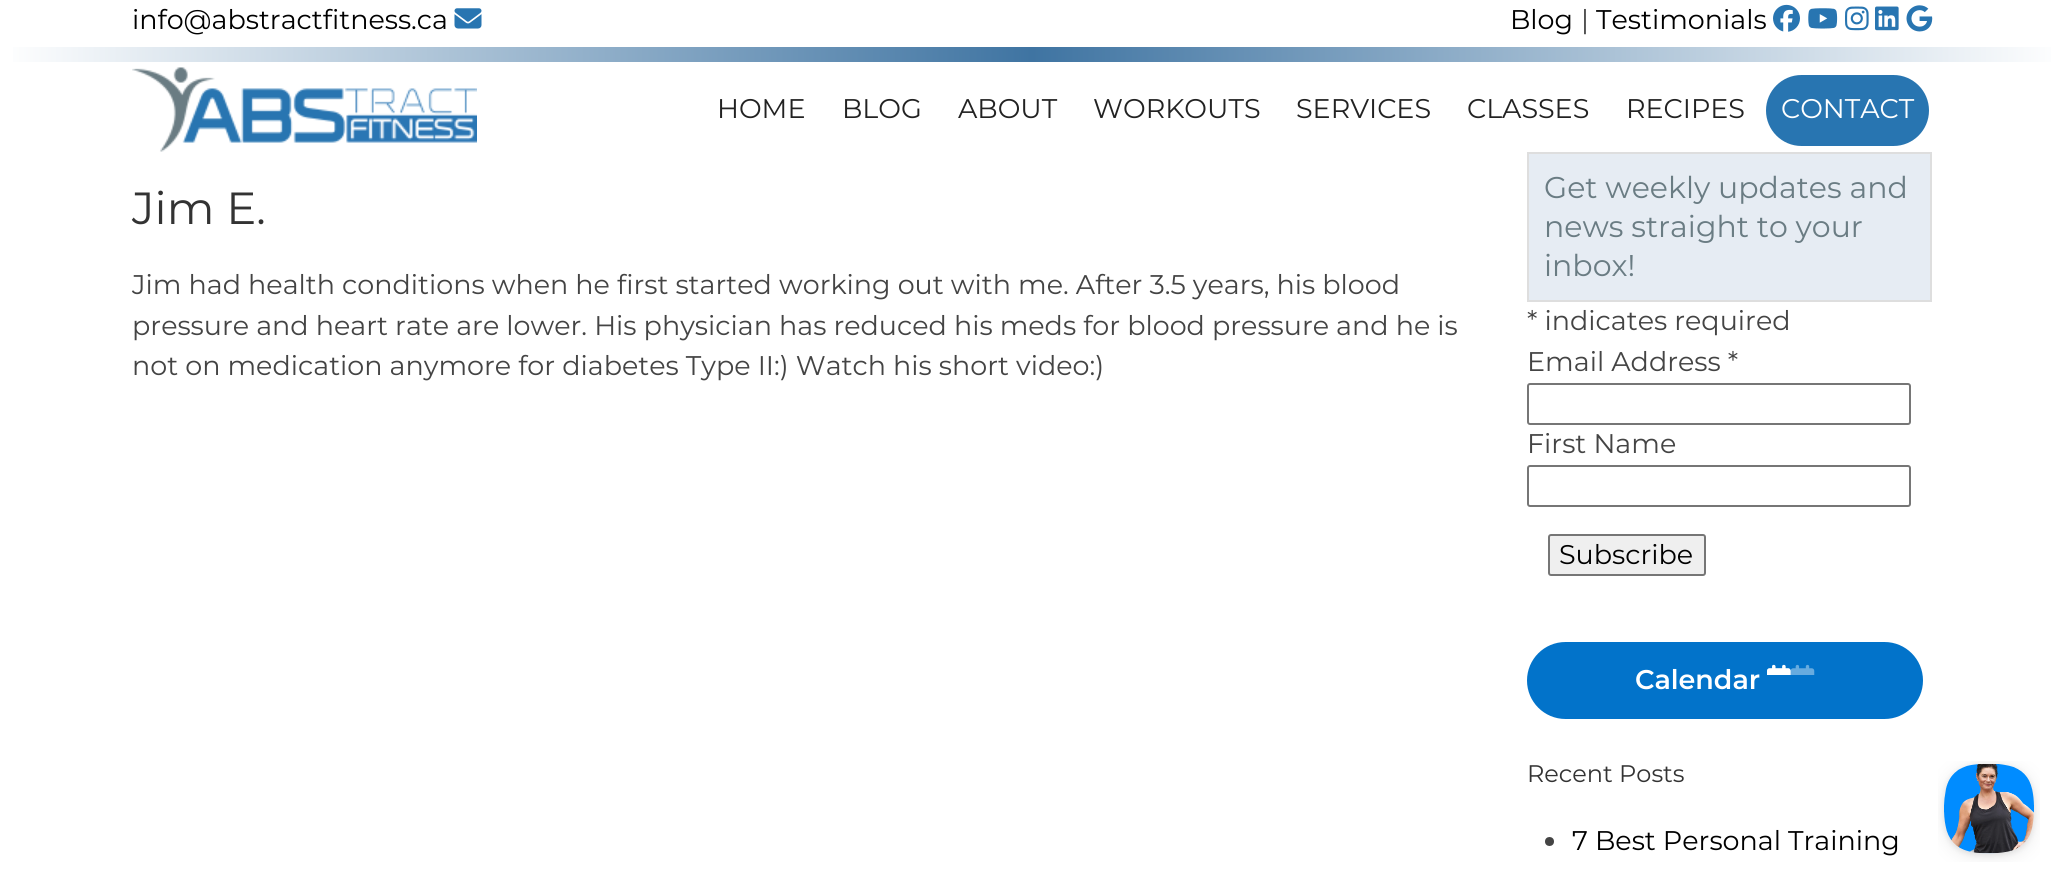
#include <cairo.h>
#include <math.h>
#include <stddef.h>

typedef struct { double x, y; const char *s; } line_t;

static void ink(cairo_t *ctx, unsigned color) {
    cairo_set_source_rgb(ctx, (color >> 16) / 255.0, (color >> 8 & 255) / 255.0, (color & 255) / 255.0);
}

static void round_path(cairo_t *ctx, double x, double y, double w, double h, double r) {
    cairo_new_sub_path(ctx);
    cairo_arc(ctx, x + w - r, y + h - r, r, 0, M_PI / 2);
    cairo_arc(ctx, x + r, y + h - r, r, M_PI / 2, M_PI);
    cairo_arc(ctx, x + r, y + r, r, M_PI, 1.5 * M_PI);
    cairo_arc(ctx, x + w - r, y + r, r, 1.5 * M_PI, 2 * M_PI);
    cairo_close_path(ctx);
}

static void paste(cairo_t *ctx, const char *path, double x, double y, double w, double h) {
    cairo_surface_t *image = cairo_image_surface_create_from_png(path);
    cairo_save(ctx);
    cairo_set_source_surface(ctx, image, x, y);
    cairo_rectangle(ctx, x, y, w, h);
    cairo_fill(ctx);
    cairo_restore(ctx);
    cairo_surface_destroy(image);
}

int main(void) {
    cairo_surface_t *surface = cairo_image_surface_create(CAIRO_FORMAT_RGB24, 2064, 883);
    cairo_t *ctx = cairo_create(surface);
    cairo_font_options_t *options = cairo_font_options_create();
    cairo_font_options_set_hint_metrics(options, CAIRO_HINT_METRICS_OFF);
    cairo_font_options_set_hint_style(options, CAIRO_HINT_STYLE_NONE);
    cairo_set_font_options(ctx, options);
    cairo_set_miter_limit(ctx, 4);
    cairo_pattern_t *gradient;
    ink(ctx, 0xFFFFFF);
    cairo_paint(ctx);
    cairo_select_font_face(ctx, "Montserrat", CAIRO_FONT_SLANT_NORMAL, CAIRO_FONT_WEIGHT_NORMAL);
    cairo_set_font_size(ctx, 27);
    ink(ctx, 0x000000);
    cairo_move_to(ctx, 132, 29);
    cairo_show_text(ctx, "info@abstractfitness.ca");
    paste(ctx, "media/1.png", 454, 8, 28, 21);
    cairo_move_to(ctx, 1510, 29);
    cairo_show_text(ctx, "Blog");
    ink(ctx, 0x444444);
    cairo_move_to(ctx, 1581, 29);
    cairo_show_text(ctx, "|");
    ink(ctx, 0x000000);
    cairo_move_to(ctx, 1596, 29);
    cairo_show_text(ctx, "Testimonials");
    paste(ctx, "media/2.png", 1773, 4, 27, 28);
    paste(ctx, "media/3.png", 1808, 8, 30, 21);
    paste(ctx, "media/4.png", 1845, 6, 24, 25);
    paste(ctx, "media/5.png", 1875, 6, 24, 25);
    paste(ctx, "media/6.png", 1906, 5, 27, 27);
    gradient = cairo_pattern_create_linear(0, 54, 2064, 54);
    cairo_pattern_add_color_stop_rgba(gradient, 0, 1, 1, 1, 1);
    cairo_pattern_add_color_stop_rgba(gradient, 0.5, 0.247, 0.455, 0.635, 1);
    cairo_pattern_add_color_stop_rgba(gradient, 1, 1, 1, 1, 1);
    cairo_set_source(ctx, gradient);
    cairo_pattern_destroy(gradient);
    cairo_rectangle(ctx, 13, 47, 2038, 15);
    cairo_fill(ctx);
    paste(ctx, "media/7.png", 132, 67, 345, 85);
    ink(ctx, 0x222222);
    {
        static const line_t items[] = {
            {717, 118, "HOME"},
            {842, 118, "BLOG"},
            {958, 118, "ABOUT"},
            {1093, 118, "WORKOUTS"},
            {1296, 118, "SERVICES"},
            {1467, 118, "CLASSES"},
            {1626, 118, "RECIPES"},
        };
        for (size_t i = 0; i < sizeof items / sizeof *items; i++) {
            cairo_move_to(ctx, items[i].x, items[i].y);
            cairo_show_text(ctx, items[i].s);
        }
    }
    ink(ctx, 0x2875B1);
    round_path(ctx, 1766, 75, 163, 71, 35.5);
    cairo_fill(ctx);
    ink(ctx, 0xFFFFFF);
    cairo_move_to(ctx, 1781, 118);
    cairo_show_text(ctx, "CONTACT");
    cairo_set_font_size(ctx, 45);
    ink(ctx, 0x333333);
    cairo_move_to(ctx, 132, 224);
    cairo_show_text(ctx, "Jim E.");
    cairo_set_font_size(ctx, 27);
    ink(ctx, 0x444444);
    {
        static const line_t items[] = {
            {132, 294, "Jim had health conditions when he first started working out with me. After 3.5 years, his blood"},
            {132, 335, "pressure and heart rate are lower. His physician has reduced his meds for blood pressure and he is"},
            {132, 375, "not on medication anymore for diabetes Type II:) Watch his short video:)"},
        };
        for (size_t i = 0; i < sizeof items / sizeof *items; i++) {
            cairo_move_to(ctx, items[i].x, items[i].y);
            cairo_show_text(ctx, items[i].s);
        }
    }
    ink(ctx, 0xE6ECF3);
    cairo_rectangle(ctx, 1528, 153, 403, 148);
    cairo_fill_preserve(ctx);
    ink(ctx, 0xDEDEDE);
    cairo_stroke(ctx);
    cairo_set_font_size(ctx, 30);
    ink(ctx, 0x6A7C83);
    {
        static const line_t items[] = {
            {1544, 198, "Get weekly updates and"},
            {1544, 237, "news straight to your"},
            {1544, 276, "inbox!"},
        };
        for (size_t i = 0; i < sizeof items / sizeof *items; i++) {
            cairo_move_to(ctx, items[i].x, items[i].y);
            cairo_show_text(ctx, items[i].s);
        }
    }
    cairo_set_font_size(ctx, 27);
    ink(ctx, 0x444444);
    cairo_move_to(ctx, 1527, 330);
    cairo_show_text(ctx, "* indicates required");
    cairo_move_to(ctx, 1527, 371);
    cairo_show_text(ctx, "Email Address *");
    round_path(ctx, 1528, 384, 382, 40, 2);
    ink(ctx, 0x767676);
    cairo_stroke(ctx);
    ink(ctx, 0x444444);
    cairo_move_to(ctx, 1527, 453);
    cairo_show_text(ctx, "First Name");
    round_path(ctx, 1528, 466, 382, 40, 2);
    ink(ctx, 0x767676);
    cairo_stroke(ctx);
    ink(ctx, 0xEFEFEF);
    round_path(ctx, 1549, 535, 156, 40, 2);
    cairo_fill_preserve(ctx);
    ink(ctx, 0x767676);
    cairo_stroke(ctx);
    ink(ctx, 0x000000);
    cairo_move_to(ctx, 1559, 564);
    cairo_show_text(ctx, "Subscribe");
    ink(ctx, 0x0273CA);
    round_path(ctx, 1528.5, 643.5, 393, 74, 37);
    cairo_fill_preserve(ctx);
    cairo_set_line_width(ctx, 3);
    cairo_stroke(ctx);
    cairo_select_font_face(ctx, "Montserrat SemiBold", CAIRO_FONT_SLANT_NORMAL, CAIRO_FONT_WEIGHT_NORMAL);
    ink(ctx, 0xFFFFFF);
    cairo_move_to(ctx, 1635, 689);
    cairo_show_text(ctx, "Calendar");
    paste(ctx, "media/8.png", 1767, 664, 24, 11);
    paste(ctx, "media/9.png", 1767, 664, 48, 11);
    cairo_select_font_face(ctx, "Montserrat", CAIRO_FONT_SLANT_NORMAL, CAIRO_FONT_WEIGHT_NORMAL);
    cairo_set_font_size(ctx, 24);
    ink(ctx, 0x333333);
    cairo_move_to(ctx, 1527, 782);
    cairo_show_text(ctx, "Recent Posts");
    ink(ctx, 0x444444);
    cairo_new_path(ctx);
    cairo_arc(ctx, 1549.5, 841.5, 4.5, 0, 2 * M_PI);
    cairo_fill(ctx);
    cairo_set_font_size(ctx, 27);
    ink(ctx, 0x000000);
    cairo_move_to(ctx, 1572, 850);
    cairo_show_text(ctx, "7 Best Personal Training");
    paste(ctx, "media/10.png", 1938, 761, 102, 101);
    cairo_surface_write_to_png(surface, "image.png");
    cairo_font_options_destroy(options);
    cairo_destroy(ctx);
    cairo_surface_destroy(surface);
    return 0;
}
